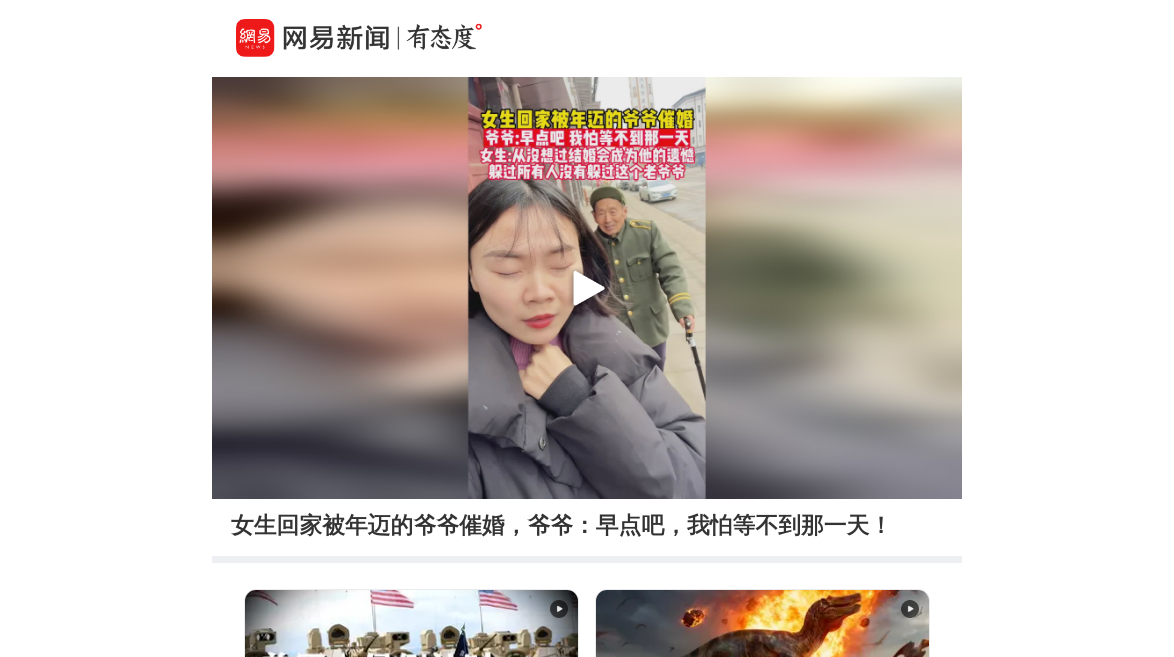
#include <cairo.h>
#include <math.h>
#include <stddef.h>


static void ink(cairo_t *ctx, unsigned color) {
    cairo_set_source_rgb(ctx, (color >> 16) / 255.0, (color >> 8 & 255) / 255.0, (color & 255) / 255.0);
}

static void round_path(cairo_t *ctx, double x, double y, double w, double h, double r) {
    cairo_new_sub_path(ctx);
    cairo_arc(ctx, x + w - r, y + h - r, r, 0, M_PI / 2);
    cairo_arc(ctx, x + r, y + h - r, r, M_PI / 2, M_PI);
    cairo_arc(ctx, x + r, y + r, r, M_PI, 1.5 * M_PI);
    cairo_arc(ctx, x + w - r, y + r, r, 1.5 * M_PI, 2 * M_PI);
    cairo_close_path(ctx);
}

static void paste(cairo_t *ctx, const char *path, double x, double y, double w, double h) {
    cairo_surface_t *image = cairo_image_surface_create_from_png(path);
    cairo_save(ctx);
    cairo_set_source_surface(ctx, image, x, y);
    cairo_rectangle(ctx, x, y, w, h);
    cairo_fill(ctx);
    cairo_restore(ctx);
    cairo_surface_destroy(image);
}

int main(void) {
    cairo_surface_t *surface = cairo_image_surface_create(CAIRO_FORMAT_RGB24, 1174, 657);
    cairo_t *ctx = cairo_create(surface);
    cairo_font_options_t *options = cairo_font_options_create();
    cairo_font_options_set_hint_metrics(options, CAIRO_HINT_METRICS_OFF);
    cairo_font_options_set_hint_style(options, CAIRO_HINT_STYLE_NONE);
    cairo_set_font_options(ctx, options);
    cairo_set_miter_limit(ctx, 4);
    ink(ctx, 0xFFFFFF);
    cairo_paint(ctx);
    paste(ctx, "media/1.png", 236, 19, 246, 38);
    paste(ctx, "media/2.png", 212, 77, 750, 422);
    paste(ctx, "media/3.png", 568, 267, 39, 42);
    cairo_select_font_face(ctx, "WenQuanYi Zen Hei", CAIRO_FONT_SLANT_NORMAL, CAIRO_FONT_WEIGHT_BOLD);
    cairo_set_font_size(ctx, 22.8);
    ink(ctx, 0x333333);
    cairo_move_to(ctx, 231, 533);
    cairo_show_text(ctx, "女生回家被年迈的爷爷催婚，爷爷：早点吧，我怕等不到那一天！");
    ink(ctx, 0xEDEFF3);
    cairo_rectangle(ctx, 212, 556, 750, 7);
    cairo_fill(ctx);
    paste(ctx, "media/4.png", 245, 590, 333, 67);
    round_path(ctx, 244.5, 589.5, 334, 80, 11.5);
    cairo_set_source_rgba(ctx, 0.2, 0.2, 0.2, 0.1);
    cairo_set_line_width(ctx, 1);
    cairo_stroke(ctx);
    paste(ctx, "media/5.png", 550, 600, 18, 18);
    paste(ctx, "media/6.png", 596, 590, 333, 67);
    round_path(ctx, 595.5, 589.5, 334, 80, 11.5);
    cairo_stroke(ctx);
    paste(ctx, "media/7.png", 901, 600, 18, 18);
    cairo_surface_write_to_png(surface, "image.png");
    cairo_font_options_destroy(options);
    cairo_destroy(ctx);
    cairo_surface_destroy(surface);
    return 0;
}
